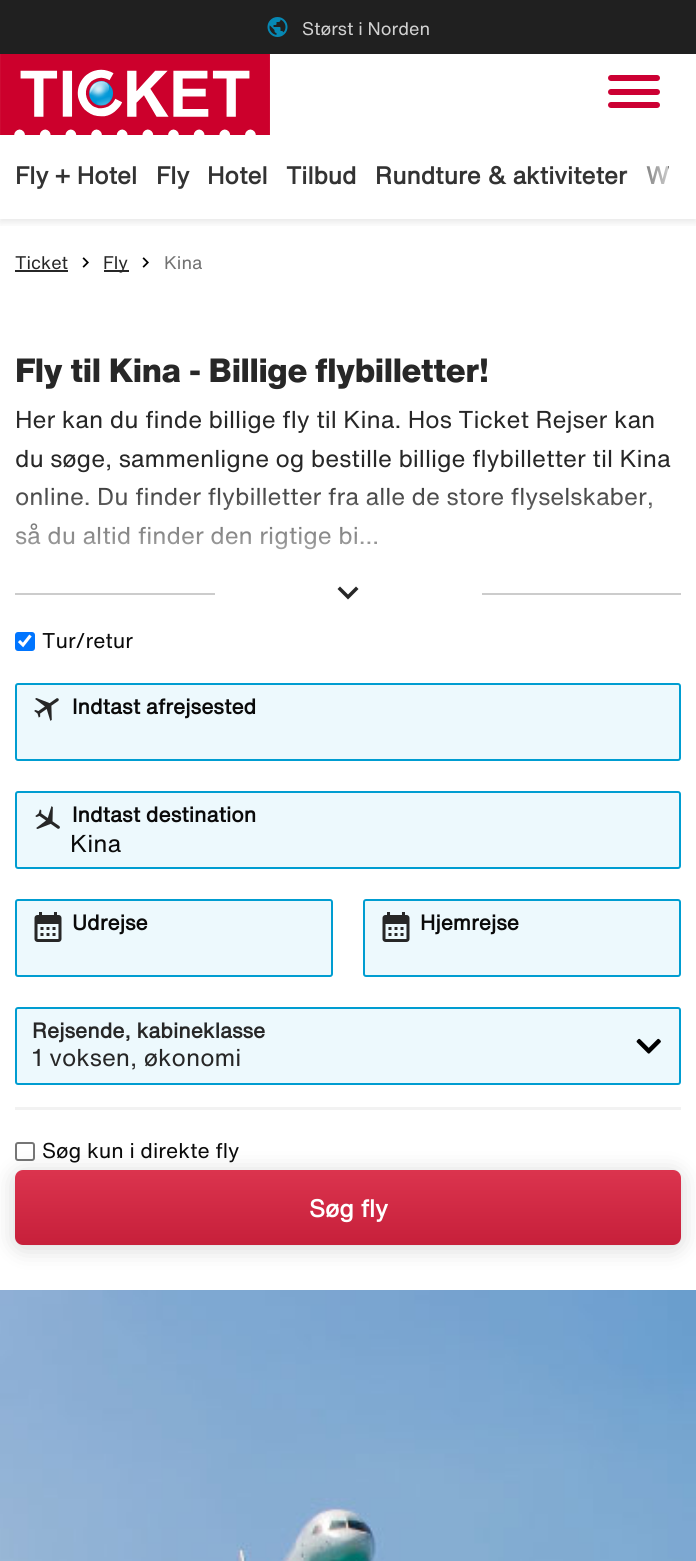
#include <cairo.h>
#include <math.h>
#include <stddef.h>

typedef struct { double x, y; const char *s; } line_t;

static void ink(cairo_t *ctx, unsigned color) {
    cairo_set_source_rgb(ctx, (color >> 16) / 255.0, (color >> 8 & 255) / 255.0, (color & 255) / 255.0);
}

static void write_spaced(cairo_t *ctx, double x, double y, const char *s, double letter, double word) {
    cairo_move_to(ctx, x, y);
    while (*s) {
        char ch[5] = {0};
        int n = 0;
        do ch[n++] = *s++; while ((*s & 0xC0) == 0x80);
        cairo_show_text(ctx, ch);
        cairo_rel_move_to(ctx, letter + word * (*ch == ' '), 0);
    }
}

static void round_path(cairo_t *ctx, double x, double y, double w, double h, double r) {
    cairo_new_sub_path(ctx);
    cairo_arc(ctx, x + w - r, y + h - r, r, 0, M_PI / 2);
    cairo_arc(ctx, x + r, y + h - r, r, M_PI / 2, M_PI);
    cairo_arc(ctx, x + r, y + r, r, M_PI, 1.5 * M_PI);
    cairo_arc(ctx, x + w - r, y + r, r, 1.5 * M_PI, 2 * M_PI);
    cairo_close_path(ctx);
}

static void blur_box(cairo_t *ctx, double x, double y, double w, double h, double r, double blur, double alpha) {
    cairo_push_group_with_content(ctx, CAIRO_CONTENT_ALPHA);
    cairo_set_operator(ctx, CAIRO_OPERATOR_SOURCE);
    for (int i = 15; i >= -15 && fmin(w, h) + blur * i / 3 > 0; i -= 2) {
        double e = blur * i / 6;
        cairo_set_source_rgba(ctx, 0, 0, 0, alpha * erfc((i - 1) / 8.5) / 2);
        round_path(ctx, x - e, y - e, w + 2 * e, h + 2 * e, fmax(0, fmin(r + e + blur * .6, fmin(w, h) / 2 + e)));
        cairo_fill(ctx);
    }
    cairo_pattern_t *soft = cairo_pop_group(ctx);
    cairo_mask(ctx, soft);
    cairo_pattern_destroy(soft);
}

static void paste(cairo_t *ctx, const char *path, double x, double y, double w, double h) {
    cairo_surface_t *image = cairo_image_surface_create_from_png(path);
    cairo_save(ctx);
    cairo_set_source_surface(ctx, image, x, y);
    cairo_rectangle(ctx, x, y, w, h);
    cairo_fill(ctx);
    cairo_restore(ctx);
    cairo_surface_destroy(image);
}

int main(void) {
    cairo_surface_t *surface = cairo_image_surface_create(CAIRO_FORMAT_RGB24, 696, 1561);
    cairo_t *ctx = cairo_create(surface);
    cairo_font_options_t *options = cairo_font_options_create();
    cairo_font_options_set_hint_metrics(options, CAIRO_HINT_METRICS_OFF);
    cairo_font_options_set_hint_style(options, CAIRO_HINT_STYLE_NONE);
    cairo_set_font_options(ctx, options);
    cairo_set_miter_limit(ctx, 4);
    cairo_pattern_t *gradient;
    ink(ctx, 0xFFFFFF);
    cairo_paint(ctx);
    cairo_save(ctx);
    cairo_rectangle(ctx, 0, 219, 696, 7);
    cairo_clip(ctx);
    ink(ctx, 0x000000);
    blur_box(ctx, 0, 57, 696, 165, 0, 4.5, 0.1);
    cairo_restore(ctx);
    ink(ctx, 0x202020);
    cairo_rectangle(ctx, 0, 0, 696, 54);
    cairo_fill(ctx);
    paste(ctx, "media/1.png", 267, 17, 21, 20);
    cairo_select_font_face(ctx, "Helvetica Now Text", CAIRO_FONT_SLANT_NORMAL, CAIRO_FONT_WEIGHT_NORMAL);
    cairo_set_font_size(ctx, 18);
    ink(ctx, 0xD2D2D2);
    cairo_move_to(ctx, 302, 35);
    cairo_show_text(ctx, "Størst i Norden");
    paste(ctx, "media/2.png", 0, 54, 270, 81);
    ink(ctx, 0xCC0033);
    round_path(ctx, 608, 75, 52, 6, 3);
    cairo_fill(ctx);
    round_path(ctx, 608, 89, 52, 6, 3);
    cairo_fill(ctx);
    round_path(ctx, 608, 102, 52, 6, 3);
    cairo_fill(ctx);
    cairo_select_font_face(ctx, "Helvetica Now Text", CAIRO_FONT_SLANT_NORMAL, CAIRO_FONT_WEIGHT_BOLD);
    cairo_set_font_size(ctx, 24);
    ink(ctx, 0x333333);
    {
        static const line_t items[] = {
            {15, 184, "Fly + Hotel"},
            {156, 184, "Fly"},
            {207, 184, "Hotel"},
            {286, 184, "Tilbud"},
            {375, 184, "Rundture & aktiviteter"},
            {646, 184, "W"},
        };
        for (size_t i = 0; i < sizeof items / sizeof *items; i++) {
            cairo_move_to(ctx, items[i].x, items[i].y);
            cairo_show_text(ctx, items[i].s);
        }
    }
    gradient = cairo_pattern_create_linear(696, 188, 621, 188);
    cairo_pattern_add_color_stop_rgba(gradient, 0.15, 1, 1, 1, 1);
    cairo_pattern_add_color_stop_rgba(gradient, 1, 1, 1, 1, 0);
    cairo_set_source(ctx, gradient);
    cairo_pattern_destroy(gradient);
    cairo_rectangle(ctx, 622, 166, 46, 18);
    cairo_fill(ctx);
    cairo_select_font_face(ctx, "Helvetica Now Text", CAIRO_FONT_SLANT_NORMAL, CAIRO_FONT_WEIGHT_NORMAL);
    cairo_set_font_size(ctx, 18);
    ink(ctx, 0x272727);
    cairo_move_to(ctx, 15, 269);
    cairo_show_text(ctx, "Ticket");
    cairo_rectangle(ctx, 15, 270, 53, 2);
    cairo_fill(ctx);
    paste(ctx, "media/3.png", 82, 257, 7, 11);
    cairo_rectangle(ctx, 104, 270, 25, 2);
    cairo_fill(ctx);
    cairo_move_to(ctx, 103, 269);
    cairo_show_text(ctx, "Fly");
    paste(ctx, "media/3.png", 142, 257, 7, 11);
    ink(ctx, 0x727272);
    cairo_move_to(ctx, 164, 269);
    cairo_show_text(ctx, "Kina");
    cairo_select_font_face(ctx, "Helvetica Now Text ExtraBold", CAIRO_FONT_SLANT_NORMAL, CAIRO_FONT_WEIGHT_NORMAL);
    cairo_set_font_size(ctx, 33);
    ink(ctx, 0x272727);
    write_spaced(ctx, 15, 382, "Fly til Kina - Billige flybilletter!", -0.4, 0);
    cairo_select_font_face(ctx, "Helvetica Now Text", CAIRO_FONT_SLANT_NORMAL, CAIRO_FONT_WEIGHT_NORMAL);
    cairo_set_font_size(ctx, 24);
    {
        static const line_t items[] = {
            {15, 428, "Her kan du finde billige fly til Kina. Hos Ticket Rejser kan"},
            {15, 467, "du søge, sammenligne og bestille billige flybilletter til Kina"},
            {15, 505, "online. Du finder flybilletter fra alle de store flyselskaber,"},
            {15, 544, "så du altid finder den rigtige bi..."},
        };
        for (size_t i = 0; i < sizeof items / sizeof *items; i++) {
            cairo_move_to(ctx, items[i].x, items[i].y);
            cairo_show_text(ctx, items[i].s);
        }
    }
    gradient = cairo_pattern_create_linear(348, 623, 348, 348);
    cairo_pattern_add_color_stop_rgba(gradient, 0.05, 1, 1, 1, 1);
    cairo_pattern_add_color_stop_rgba(gradient, 0.55, 1, 1, 1, 0);
    cairo_set_source(ctx, gradient);
    cairo_pattern_destroy(gradient);
    cairo_rectangle(ctx, 16, 488, 636, 62);
    cairo_fill(ctx);
    ink(ctx, 0xCCCCCC);
    cairo_rectangle(ctx, 15, 593, 200, 2);
    cairo_fill(ctx);
    ink(ctx, 0x272727);
    cairo_new_path(ctx);
    cairo_move_to(ctx, 356, 586.5);
    cairo_line_to(ctx, 358.5, 589);
    cairo_line_to(ctx, 348, 599.5);
    cairo_line_to(ctx, 337.5, 589);
    cairo_line_to(ctx, 340, 586.5);
    cairo_line_to(ctx, 348, 594.5);
    cairo_close_path(ctx);
    cairo_fill(ctx);
    ink(ctx, 0xCCCCCC);
    cairo_rectangle(ctx, 482, 593, 199, 2);
    cairo_fill(ctx);
    ink(ctx, 0x0075FF);
    round_path(ctx, 15, 632, 20, 19, 3);
    cairo_fill(ctx);
    cairo_new_path(ctx);
    cairo_move_to(ctx, 19, 641);
    cairo_line_to(ctx, 23, 645);
    cairo_line_to(ctx, 30.5, 635.5);
    ink(ctx, 0xFFFFFF);
    cairo_set_line_width(ctx, 3.1);
    cairo_stroke(ctx);
    cairo_set_font_size(ctx, 21);
    ink(ctx, 0x0A0A0A);
    cairo_move_to(ctx, 42, 648);
    cairo_show_text(ctx, "Tur/retur");
    ink(ctx, 0xEDF9FD);
    round_path(ctx, 16, 684, 664, 76, 2);
    cairo_fill_preserve(ctx);
    ink(ctx, 0x009DD1);
    cairo_set_line_width(ctx, 2);
    cairo_stroke(ctx);
    paste(ctx, "media/4.png", 34, 698, 25, 23);
    cairo_select_font_face(ctx, "Helvetica Now Text", CAIRO_FONT_SLANT_NORMAL, CAIRO_FONT_WEIGHT_BOLD);
    ink(ctx, 0x0A0A0A);
    cairo_move_to(ctx, 72, 714);
    cairo_show_text(ctx, "Indtast afrejsested");
    ink(ctx, 0xEDF9FD);
    round_path(ctx, 16, 792, 664, 76, 2);
    cairo_fill_preserve(ctx);
    ink(ctx, 0x009DD1);
    cairo_stroke(ctx);
    ink(ctx, 0x0A0A0A);
    cairo_move_to(ctx, 72, 822);
    cairo_show_text(ctx, "Indtast destination");
    paste(ctx, "media/5.png", 35, 806, 25, 23);
    cairo_select_font_face(ctx, "Helvetica Now Text", CAIRO_FONT_SLANT_NORMAL, CAIRO_FONT_WEIGHT_NORMAL);
    cairo_set_font_size(ctx, 24);
    cairo_move_to(ctx, 70, 852);
    cairo_show_text(ctx, "Kina");
    ink(ctx, 0xEDF9FD);
    round_path(ctx, 16, 900, 316, 76, 2);
    cairo_fill_preserve(ctx);
    ink(ctx, 0x009DD1);
    cairo_stroke(ctx);
    paste(ctx, "media/6.png", 34, 912, 28, 30);
    cairo_select_font_face(ctx, "Helvetica Now Text", CAIRO_FONT_SLANT_NORMAL, CAIRO_FONT_WEIGHT_BOLD);
    cairo_set_font_size(ctx, 21);
    ink(ctx, 0x0A0A0A);
    cairo_move_to(ctx, 72, 930);
    cairo_show_text(ctx, "Udrejse");
    ink(ctx, 0xEDF9FD);
    round_path(ctx, 364, 900, 316, 76, 2);
    cairo_fill_preserve(ctx);
    ink(ctx, 0x009DD1);
    cairo_stroke(ctx);
    paste(ctx, "media/6.png", 382, 912, 28, 30);
    ink(ctx, 0x0A0A0A);
    cairo_move_to(ctx, 420, 930);
    cairo_show_text(ctx, "Hjemrejse");
    ink(ctx, 0xEDF9FD);
    round_path(ctx, 16, 1008, 664, 76, 2);
    cairo_fill_preserve(ctx);
    ink(ctx, 0x009DD1);
    cairo_stroke(ctx);
    ink(ctx, 0x272727);
    cairo_move_to(ctx, 32, 1038);
    cairo_show_text(ctx, "Rejsende, kabineklasse");
    cairo_select_font_face(ctx, "Helvetica Now Text", CAIRO_FONT_SLANT_NORMAL, CAIRO_FONT_WEIGHT_NORMAL);
    cairo_set_font_size(ctx, 24);
    cairo_move_to(ctx, 32, 1066);
    cairo_show_text(ctx, "1 voksen, økonomi");
    paste(ctx, "media/7.png", 636, 1038, 25, 16);
    ink(ctx, 0xF2F2F2);
    cairo_rectangle(ctx, 15, 1107, 666, 3);
    cairo_fill(ctx);
    round_path(ctx, 16, 1143, 18, 17, 2);
    ink(ctx, 0x767676);
    cairo_stroke(ctx);
    cairo_set_font_size(ctx, 21);
    ink(ctx, 0x0A0A0A);
    cairo_move_to(ctx, 42, 1158);
    cairo_show_text(ctx, "Søg kun i direkte fly");
    ink(ctx, 0x000000);
    blur_box(ctx, 15, 1173, 666, 75, 8, 12, 0.16);
    gradient = cairo_pattern_create_linear(348, 1170, 348, 1245);
    cairo_pattern_add_color_stop_rgba(gradient, 0, 0.859, 0.204, 0.306, 1);
    cairo_pattern_add_color_stop_rgba(gradient, 0.98, 0.78, 0.125, 0.231, 1);
    cairo_set_source(ctx, gradient);
    cairo_pattern_destroy(gradient);
    round_path(ctx, 15, 1170, 666, 75, 8);
    cairo_fill(ctx);
    cairo_select_font_face(ctx, "Helvetica Now Text", CAIRO_FONT_SLANT_NORMAL, CAIRO_FONT_WEIGHT_BOLD);
    cairo_set_font_size(ctx, 24);
    ink(ctx, 0xFFFFFF);
    cairo_move_to(ctx, 309, 1217);
    cairo_show_text(ctx, "Søg fly");
    paste(ctx, "media/8.png", 0, 1290, 696, 271);
    cairo_surface_write_to_png(surface, "image.png");
    cairo_font_options_destroy(options);
    cairo_destroy(ctx);
    cairo_surface_destroy(surface);
    return 0;
}
